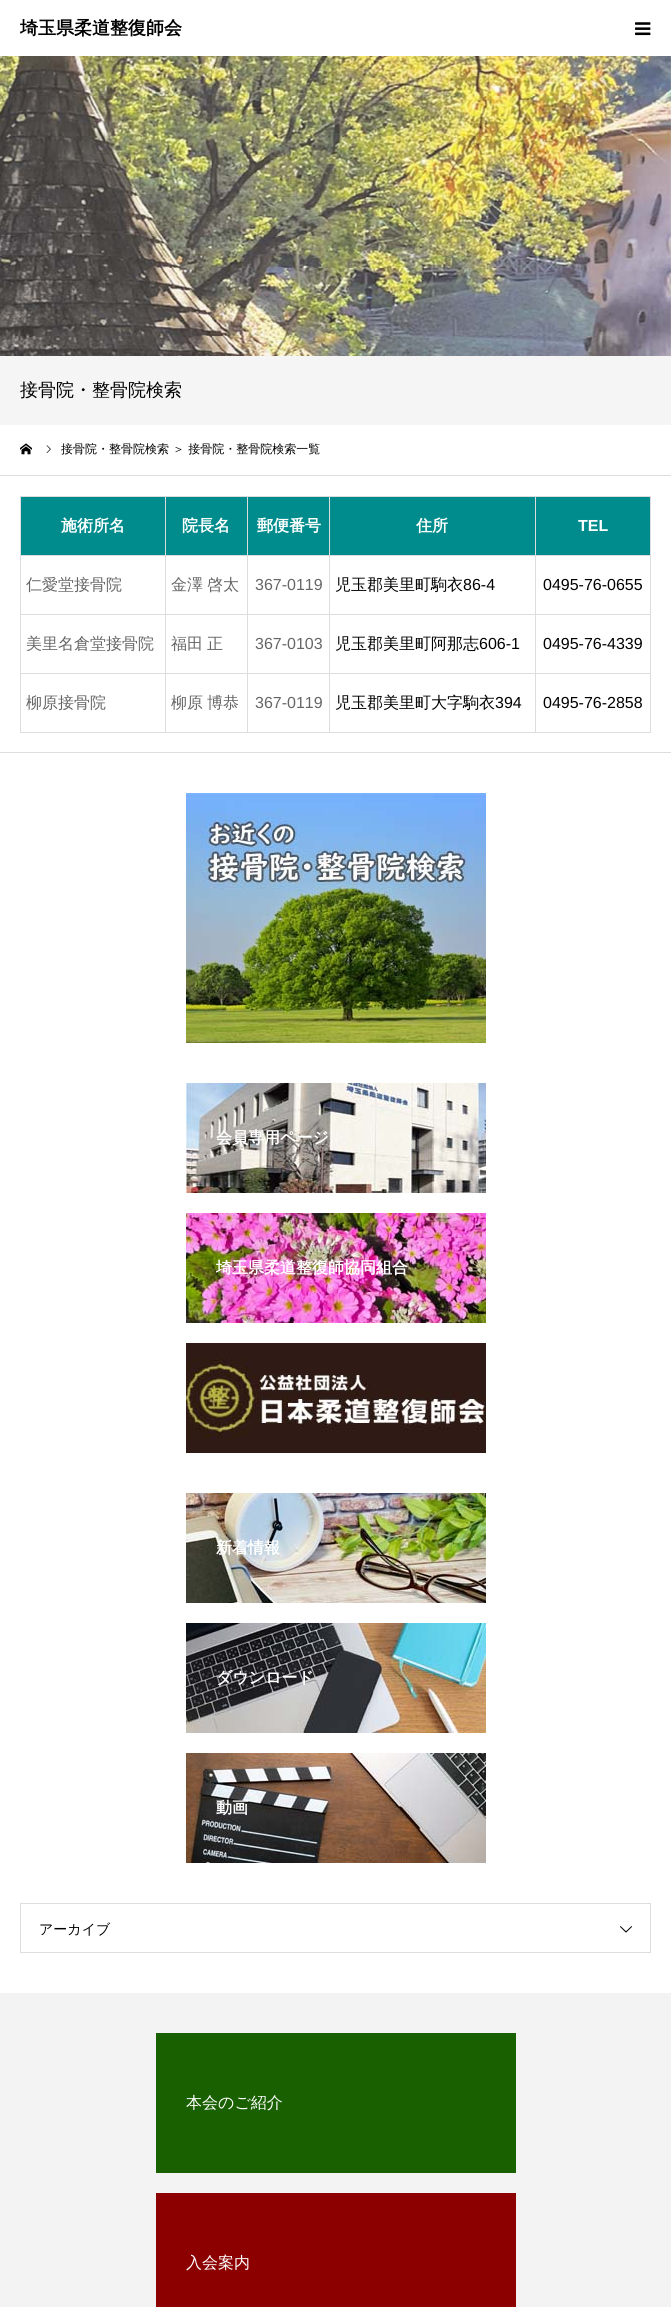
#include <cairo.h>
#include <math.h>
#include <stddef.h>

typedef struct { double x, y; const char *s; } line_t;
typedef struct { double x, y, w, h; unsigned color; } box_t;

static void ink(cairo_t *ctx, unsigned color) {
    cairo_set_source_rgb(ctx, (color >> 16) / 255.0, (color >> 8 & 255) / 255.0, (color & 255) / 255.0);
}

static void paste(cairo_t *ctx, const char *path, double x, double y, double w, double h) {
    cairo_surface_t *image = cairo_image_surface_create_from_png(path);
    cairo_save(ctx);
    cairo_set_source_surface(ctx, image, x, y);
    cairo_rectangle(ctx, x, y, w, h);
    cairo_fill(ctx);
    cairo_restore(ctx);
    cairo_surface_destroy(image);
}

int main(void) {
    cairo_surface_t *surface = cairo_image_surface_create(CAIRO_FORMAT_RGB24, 671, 2307);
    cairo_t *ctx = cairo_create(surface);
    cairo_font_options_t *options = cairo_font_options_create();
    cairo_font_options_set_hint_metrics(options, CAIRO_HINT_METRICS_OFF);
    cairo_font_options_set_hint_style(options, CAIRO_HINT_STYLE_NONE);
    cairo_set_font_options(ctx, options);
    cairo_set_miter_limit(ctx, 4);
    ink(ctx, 0xFFFFFF);
    cairo_paint(ctx);
    cairo_select_font_face(ctx, "WenQuanYi Zen Hei", CAIRO_FONT_SLANT_NORMAL, CAIRO_FONT_WEIGHT_BOLD);
    cairo_set_font_size(ctx, 18);
    ink(ctx, 0x000000);
    cairo_move_to(ctx, 20, 34);
    cairo_show_text(ctx, "埼玉県柔道整復師会");
    paste(ctx, "media/1.png", 635, 22, 16, 14);
    paste(ctx, "media/2.png", 0, 56, 671, 300);
    ink(ctx, 0xF5F5F5);
    cairo_rectangle(ctx, 0, 356, 671, 69);
    cairo_fill(ctx);
    cairo_select_font_face(ctx, "WenQuanYi Zen Hei Medium", CAIRO_FONT_SLANT_NORMAL, CAIRO_FONT_WEIGHT_NORMAL);
    ink(ctx, 0x000000);
    cairo_move_to(ctx, 20, 396);
    cairo_show_text(ctx, "接骨院・整骨院検索");
    ink(ctx, 0xDDDDDD);
    cairo_rectangle(ctx, 0, 475, 671, 1);
    cairo_fill(ctx);
    paste(ctx, "media/3.png", 20, 443, 12, 12);
    paste(ctx, "media/4.png", 46, 445, 5, 8);
    cairo_set_font_size(ctx, 12);
    ink(ctx, 0x000000);
    cairo_move_to(ctx, 61, 453);
    cairo_show_text(ctx, "接骨院・整骨院検索 ＞ 接骨院・整骨院検索一覧");
    {
        static const box_t items[] = {
            {0, 752, 671, 1, 0xDDDDDD},
            {21, 497, 144, 58, 0x008C8D},
            {535, 496, 116, 1, 0xDDDDDD},
            {535, 555, 116, 1, 0xDDDDDD},
            {535, 614, 116, 1, 0xDDDDDD},
            {535, 673, 116, 1, 0xDDDDDD},
            {650, 673, 1, 60, 0xDDDDDD},
            {535, 732, 116, 1, 0xDDDDDD},
            {535, 673, 1, 60, 0xDDDDDD},
            {329, 673, 207, 1, 0xDDDDDD},
            {535, 614, 1, 60, 0xDDDDDD},
            {329, 614, 207, 1, 0xDDDDDD},
            {535, 555, 1, 60, 0xDDDDDD},
            {329, 555, 207, 1, 0xDDDDDD},
            {535, 496, 1, 60, 0xDDDDDD},
            {329, 496, 207, 1, 0xDDDDDD},
            {329, 732, 207, 1, 0xDDDDDD},
            {329, 673, 1, 60, 0xDDDDDD},
            {247, 673, 83, 1, 0xDDDDDD},
            {329, 614, 1, 60, 0xDDDDDD},
            {247, 614, 83, 1, 0xDDDDDD},
            {329, 555, 1, 60, 0xDDDDDD},
            {247, 555, 83, 1, 0xDDDDDD},
            {329, 496, 1, 60, 0xDDDDDD},
            {247, 496, 83, 1, 0xDDDDDD},
            {247, 732, 83, 1, 0xDDDDDD},
            {247, 673, 1, 60, 0xDDDDDD},
            {165, 673, 83, 1, 0xDDDDDD},
            {247, 614, 1, 60, 0xDDDDDD},
            {165, 614, 83, 1, 0xDDDDDD},
            {247, 555, 1, 60, 0xDDDDDD},
            {165, 555, 83, 1, 0xDDDDDD},
            {247, 496, 1, 60, 0xDDDDDD},
            {165, 496, 83, 1, 0xDDDDDD},
            {165, 732, 83, 1, 0xDDDDDD},
            {165, 673, 1, 60, 0xDDDDDD},
            {20, 673, 146, 1, 0xDDDDDD},
            {165, 614, 1, 60, 0xDDDDDD},
            {20, 614, 146, 1, 0xDDDDDD},
            {165, 555, 1, 60, 0xDDDDDD},
            {20, 555, 146, 1, 0xDDDDDD},
            {165, 496, 1, 60, 0xDDDDDD},
            {20, 496, 146, 1, 0xDDDDDD},
            {20, 732, 146, 1, 0xDDDDDD},
            {20, 673, 1, 60, 0xDDDDDD},
            {20, 614, 1, 60, 0xDDDDDD},
            {20, 555, 1, 60, 0xDDDDDD},
            {20, 496, 1, 60, 0xDDDDDD},
        };
        for (size_t i = 0; i < sizeof items / sizeof *items; i++) {
            ink(ctx, items[i].color);
            cairo_rectangle(ctx, items[i].x, items[i].y, items[i].w, items[i].h);
            cairo_fill(ctx);
        }
    }
    cairo_select_font_face(ctx, "WenQuanYi Zen Hei", CAIRO_FONT_SLANT_NORMAL, CAIRO_FONT_WEIGHT_BOLD);
    cairo_set_font_size(ctx, 16);
    ink(ctx, 0xFFFFFF);
    cairo_move_to(ctx, 61, 531);
    cairo_show_text(ctx, "施術所名");
    ink(ctx, 0x008C8D);
    cairo_rectangle(ctx, 166, 497, 81, 58);
    cairo_fill(ctx);
    ink(ctx, 0xFFFFFF);
    cairo_move_to(ctx, 182, 531);
    cairo_show_text(ctx, "院長名");
    ink(ctx, 0x008C8D);
    cairo_rectangle(ctx, 248, 497, 81, 58);
    cairo_fill(ctx);
    ink(ctx, 0xFFFFFF);
    cairo_move_to(ctx, 257, 531);
    cairo_show_text(ctx, "郵便番号");
    ink(ctx, 0x008C8D);
    cairo_rectangle(ctx, 330, 497, 205, 58);
    cairo_fill(ctx);
    ink(ctx, 0xFFFFFF);
    cairo_move_to(ctx, 416, 531);
    cairo_show_text(ctx, "住所");
    {
        static const box_t items[] = {
            {536, 497, 114, 58, 0x008C8D},
            {650, 614, 1, 60, 0xDDDDDD},
            {650, 555, 1, 60, 0xDDDDDD},
            {650, 496, 1, 60, 0xDDDDDD},
        };
        for (size_t i = 0; i < sizeof items / sizeof *items; i++) {
            ink(ctx, items[i].color);
            cairo_rectangle(ctx, items[i].x, items[i].y, items[i].w, items[i].h);
            cairo_fill(ctx);
        }
    }
    cairo_select_font_face(ctx, "Liberation Sans", CAIRO_FONT_SLANT_NORMAL, CAIRO_FONT_WEIGHT_BOLD);
    ink(ctx, 0xFFFFFF);
    cairo_move_to(ctx, 578, 531);
    cairo_show_text(ctx, "TEL");
    cairo_select_font_face(ctx, "WenQuanYi Zen Hei Medium", CAIRO_FONT_SLANT_NORMAL, CAIRO_FONT_WEIGHT_NORMAL);
    ink(ctx, 0x666666);
    {
        static const line_t items[] = {
            {26, 590, "仁愛堂接骨院"},
            {171, 590, "金澤"},
            {207, 590, "啓太"},
        };
        for (size_t i = 0; i < sizeof items / sizeof *items; i++) {
            cairo_move_to(ctx, items[i].x, items[i].y);
            cairo_show_text(ctx, items[i].s);
        }
    }
    cairo_select_font_face(ctx, "Liberation Sans", CAIRO_FONT_SLANT_NORMAL, CAIRO_FONT_WEIGHT_NORMAL);
    cairo_move_to(ctx, 255, 590);
    cairo_show_text(ctx, "367-0119");
    cairo_select_font_face(ctx, "WenQuanYi Zen Hei Medium", CAIRO_FONT_SLANT_NORMAL, CAIRO_FONT_WEIGHT_NORMAL);
    ink(ctx, 0x000000);
    cairo_move_to(ctx, 335, 590);
    cairo_show_text(ctx, "児玉郡美里町駒衣");
    cairo_select_font_face(ctx, "Liberation Sans", CAIRO_FONT_SLANT_NORMAL, CAIRO_FONT_WEIGHT_NORMAL);
    cairo_move_to(ctx, 463, 590);
    cairo_show_text(ctx, "86-4");
    cairo_move_to(ctx, 543, 590);
    cairo_show_text(ctx, "0495-76-0655");
    cairo_select_font_face(ctx, "WenQuanYi Zen Hei Medium", CAIRO_FONT_SLANT_NORMAL, CAIRO_FONT_WEIGHT_NORMAL);
    ink(ctx, 0x666666);
    {
        static const line_t items[] = {
            {26, 649, "美里名倉堂接骨院"},
            {171, 649, "福田"},
            {207, 649, "正"},
        };
        for (size_t i = 0; i < sizeof items / sizeof *items; i++) {
            cairo_move_to(ctx, items[i].x, items[i].y);
            cairo_show_text(ctx, items[i].s);
        }
    }
    cairo_select_font_face(ctx, "Liberation Sans", CAIRO_FONT_SLANT_NORMAL, CAIRO_FONT_WEIGHT_NORMAL);
    cairo_move_to(ctx, 255, 649);
    cairo_show_text(ctx, "367-0103");
    cairo_select_font_face(ctx, "WenQuanYi Zen Hei Medium", CAIRO_FONT_SLANT_NORMAL, CAIRO_FONT_WEIGHT_NORMAL);
    ink(ctx, 0x000000);
    cairo_move_to(ctx, 335, 649);
    cairo_show_text(ctx, "児玉郡美里町阿那志");
    cairo_select_font_face(ctx, "Liberation Sans", CAIRO_FONT_SLANT_NORMAL, CAIRO_FONT_WEIGHT_NORMAL);
    cairo_move_to(ctx, 479, 649);
    cairo_show_text(ctx, "606-1");
    cairo_move_to(ctx, 543, 649);
    cairo_show_text(ctx, "0495-76-4339");
    cairo_select_font_face(ctx, "WenQuanYi Zen Hei Medium", CAIRO_FONT_SLANT_NORMAL, CAIRO_FONT_WEIGHT_NORMAL);
    ink(ctx, 0x666666);
    {
        static const line_t items[] = {
            {26, 708, "柳原接骨院"},
            {171, 708, "柳原"},
            {207, 708, "博恭"},
        };
        for (size_t i = 0; i < sizeof items / sizeof *items; i++) {
            cairo_move_to(ctx, items[i].x, items[i].y);
            cairo_show_text(ctx, items[i].s);
        }
    }
    cairo_select_font_face(ctx, "Liberation Sans", CAIRO_FONT_SLANT_NORMAL, CAIRO_FONT_WEIGHT_NORMAL);
    cairo_move_to(ctx, 255, 708);
    cairo_show_text(ctx, "367-0119");
    cairo_select_font_face(ctx, "WenQuanYi Zen Hei Medium", CAIRO_FONT_SLANT_NORMAL, CAIRO_FONT_WEIGHT_NORMAL);
    ink(ctx, 0x000000);
    cairo_move_to(ctx, 335, 708);
    cairo_show_text(ctx, "児玉郡美里町大字駒衣");
    cairo_select_font_face(ctx, "Liberation Sans", CAIRO_FONT_SLANT_NORMAL, CAIRO_FONT_WEIGHT_NORMAL);
    cairo_move_to(ctx, 495, 708);
    cairo_show_text(ctx, "394");
    cairo_move_to(ctx, 543, 708);
    cairo_show_text(ctx, "0495-76-2858");
    paste(ctx, "media/5.png", 186, 793, 300, 250);
    paste(ctx, "media/6.png", 186, 1083, 300, 110);
    cairo_select_font_face(ctx, "WenQuanYi Zen Hei", CAIRO_FONT_SLANT_NORMAL, CAIRO_FONT_WEIGHT_BOLD);
    ink(ctx, 0xFFFFFF);
    cairo_move_to(ctx, 216, 1143);
    cairo_show_text(ctx, "会員専用ページ");
    paste(ctx, "media/7.png", 186, 1213, 300, 110);
    cairo_move_to(ctx, 216, 1273);
    cairo_show_text(ctx, "埼玉県柔道整復師協同組合");
    paste(ctx, "media/8.png", 186, 1343, 300, 110);
    paste(ctx, "media/9.png", 186, 1493, 300, 110);
    cairo_move_to(ctx, 216, 1553);
    cairo_show_text(ctx, "新着情報");
    paste(ctx, "media/10.png", 186, 1623, 300, 110);
    cairo_move_to(ctx, 216, 1683);
    cairo_show_text(ctx, "ダウンロード");
    paste(ctx, "media/11.png", 186, 1753, 300, 110);
    cairo_move_to(ctx, 216, 1813);
    cairo_show_text(ctx, "動画");
    cairo_rectangle(ctx, 20.5, 1903.5, 630, 49);
    ink(ctx, 0xDDDDDD);
    cairo_set_line_width(ctx, 1);
    cairo_stroke(ctx);
    cairo_select_font_face(ctx, "WenQuanYi Zen Hei Medium", CAIRO_FONT_SLANT_NORMAL, CAIRO_FONT_WEIGHT_NORMAL);
    cairo_set_font_size(ctx, 14);
    ink(ctx, 0x000000);
    cairo_move_to(ctx, 39, 1934);
    cairo_show_text(ctx, "アーカイブ");
    paste(ctx, "media/12.png", 620, 1926, 12, 7);
    ink(ctx, 0xF3F3F3);
    cairo_rectangle(ctx, 0, 1993, 671, 314);
    cairo_fill(ctx);
    ink(ctx, 0x196000);
    cairo_rectangle(ctx, 156, 2033, 360, 140);
    cairo_fill(ctx);
    cairo_set_font_size(ctx, 16);
    ink(ctx, 0xFFFFFF);
    cairo_move_to(ctx, 186, 2108);
    cairo_show_text(ctx, "本会のご紹介");
    ink(ctx, 0x8C0000);
    cairo_rectangle(ctx, 156, 2193, 360, 114);
    cairo_fill(ctx);
    ink(ctx, 0xFFFFFF);
    cairo_move_to(ctx, 186, 2268);
    cairo_show_text(ctx, "入会案内");
    cairo_surface_write_to_png(surface, "image.png");
    cairo_font_options_destroy(options);
    cairo_destroy(ctx);
    cairo_surface_destroy(surface);
    return 0;
}
